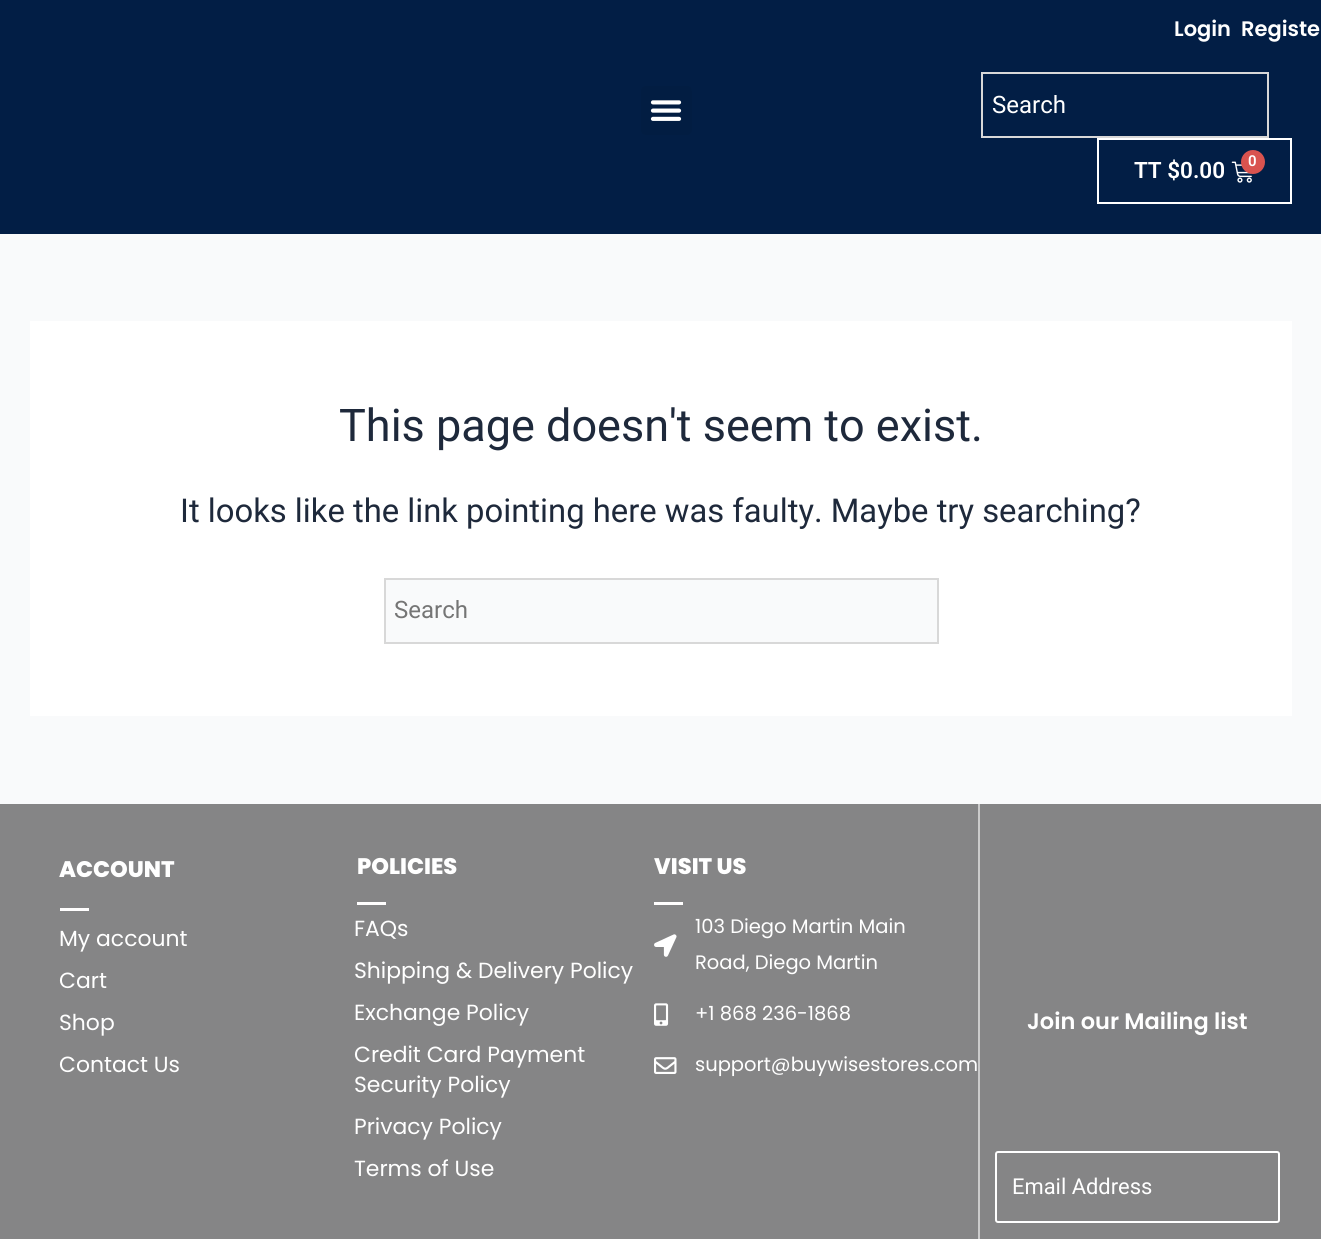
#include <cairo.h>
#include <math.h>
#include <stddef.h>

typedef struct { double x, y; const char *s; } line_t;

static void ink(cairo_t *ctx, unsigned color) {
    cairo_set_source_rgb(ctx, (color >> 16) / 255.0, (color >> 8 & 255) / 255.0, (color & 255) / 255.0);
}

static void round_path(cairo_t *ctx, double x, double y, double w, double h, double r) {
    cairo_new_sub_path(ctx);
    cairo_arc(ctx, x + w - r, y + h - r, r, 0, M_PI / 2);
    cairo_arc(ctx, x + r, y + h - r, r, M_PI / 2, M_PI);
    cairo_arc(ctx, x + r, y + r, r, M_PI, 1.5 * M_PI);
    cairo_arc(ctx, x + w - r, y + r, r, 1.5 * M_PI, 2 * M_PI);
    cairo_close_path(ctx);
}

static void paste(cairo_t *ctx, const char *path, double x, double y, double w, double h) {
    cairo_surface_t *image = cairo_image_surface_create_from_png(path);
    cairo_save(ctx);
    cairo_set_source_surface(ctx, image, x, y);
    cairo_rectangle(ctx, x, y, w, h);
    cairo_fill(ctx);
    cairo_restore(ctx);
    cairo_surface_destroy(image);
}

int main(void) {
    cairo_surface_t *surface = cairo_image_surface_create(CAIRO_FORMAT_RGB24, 1321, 1239);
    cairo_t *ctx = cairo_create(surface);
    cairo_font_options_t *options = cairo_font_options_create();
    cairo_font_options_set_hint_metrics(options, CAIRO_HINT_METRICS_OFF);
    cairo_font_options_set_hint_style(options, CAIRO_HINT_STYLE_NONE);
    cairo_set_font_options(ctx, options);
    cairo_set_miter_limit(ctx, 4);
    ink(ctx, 0xF9FAFB);
    cairo_paint(ctx);
    ink(ctx, 0x021E45);
    cairo_rectangle(ctx, 0, 0, 1321, 234);
    cairo_fill(ctx);
    ink(ctx, 0x021D42);
    round_path(ctx, 641, 86, 51, 49, 5);
    cairo_fill(ctx);
    paste(ctx, "media/1.png", 650, 100, 32, 21);
    cairo_select_font_face(ctx, "Poppins SemiBold", CAIRO_FONT_SLANT_NORMAL, CAIRO_FONT_WEIGHT_NORMAL);
    cairo_set_font_size(ctx, 21);
    ink(ctx, 0xFFFFFF);
    cairo_move_to(ctx, 1174, 36);
    cairo_show_text(ctx, "Login");
    cairo_move_to(ctx, 1241, 36);
    cairo_show_text(ctx, "Registe");
    cairo_rectangle(ctx, 982, 73, 286, 64);
    ink(ctx, 0xD8D8D8);
    cairo_stroke(ctx);
    cairo_select_font_face(ctx, "Roboto", CAIRO_FONT_SLANT_NORMAL, CAIRO_FONT_WEIGHT_NORMAL);
    cairo_set_font_size(ctx, 24);
    ink(ctx, 0xFFFFFF);
    cairo_move_to(ctx, 992, 113);
    cairo_show_text(ctx, "Search");
    cairo_rectangle(ctx, 1098, 139, 193, 64);
    cairo_stroke(ctx);
    cairo_select_font_face(ctx, "Roboto SemiBold", CAIRO_FONT_SLANT_NORMAL, CAIRO_FONT_WEIGHT_NORMAL);
    cairo_set_font_size(ctx, 22.5);
    cairo_move_to(ctx, 1134, 178);
    cairo_show_text(ctx, "TT $0.00");
    paste(ctx, "media/2.png", 1231, 161, 21, 22);
    ink(ctx, 0xD9534F);
    cairo_arc(ctx, 1253, 162, 12, 0, 2 * M_PI);
    cairo_fill(ctx);
    cairo_set_font_size(ctx, 15);
    ink(ctx, 0xFFFFFF);
    cairo_move_to(ctx, 1248, 166);
    cairo_show_text(ctx, "0");
    cairo_rectangle(ctx, 30, 321, 1262, 395);
    cairo_fill(ctx);
    cairo_select_font_face(ctx, "Roboto", CAIRO_FONT_SLANT_NORMAL, CAIRO_FONT_WEIGHT_NORMAL);
    cairo_set_font_size(ctx, 45);
    ink(ctx, 0x1E293B);
    cairo_move_to(ctx, 339, 441);
    cairo_show_text(ctx, "This page doesn't seem to exist.");
    cairo_set_font_size(ctx, 32.8);
    cairo_move_to(ctx, 180, 522);
    cairo_show_text(ctx, "It looks like the link pointing here was faulty. Maybe try searching?");
    ink(ctx, 0xF9FAFB);
    cairo_rectangle(ctx, 385, 579, 553, 64);
    cairo_fill_preserve(ctx);
    ink(ctx, 0xD8D8D8);
    cairo_stroke(ctx);
    cairo_set_font_size(ctx, 24);
    ink(ctx, 0x757575);
    cairo_move_to(ctx, 394, 618);
    cairo_show_text(ctx, "Search");
    ink(ctx, 0x858586);
    cairo_rectangle(ctx, 0, 804, 1321, 435);
    cairo_fill(ctx);
    cairo_select_font_face(ctx, "Poppins ExtraBold", CAIRO_FONT_SLANT_NORMAL, CAIRO_FONT_WEIGHT_NORMAL);
    cairo_set_font_size(ctx, 22.5);
    ink(ctx, 0xFFFFFF);
    cairo_move_to(ctx, 59, 877);
    cairo_show_text(ctx, "ACCOUNT");
    ink(ctx, 0xFFFEFE);
    cairo_rectangle(ctx, 60, 908, 29, 3);
    cairo_fill(ctx);
    cairo_select_font_face(ctx, "Poppins", CAIRO_FONT_SLANT_NORMAL, CAIRO_FONT_WEIGHT_NORMAL);
    cairo_set_font_size(ctx, 21.9);
    ink(ctx, 0xFFFFFF);
    {
        static const line_t items[] = {
            {59, 946, "My account"},
            {59, 988, "Cart"},
            {59, 1030, "Shop"},
            {59, 1072, "Contact Us"},
        };
        for (size_t i = 0; i < sizeof items / sizeof *items; i++) {
            cairo_move_to(ctx, items[i].x, items[i].y);
            cairo_show_text(ctx, items[i].s);
        }
    }
    cairo_select_font_face(ctx, "Poppins ExtraBold", CAIRO_FONT_SLANT_NORMAL, CAIRO_FONT_WEIGHT_NORMAL);
    cairo_set_font_size(ctx, 22.5);
    cairo_move_to(ctx, 357, 874);
    cairo_show_text(ctx, "POLICIES");
    ink(ctx, 0xFFFEFE);
    cairo_rectangle(ctx, 357, 902, 29, 3);
    cairo_fill(ctx);
    cairo_select_font_face(ctx, "Poppins", CAIRO_FONT_SLANT_NORMAL, CAIRO_FONT_WEIGHT_NORMAL);
    cairo_set_font_size(ctx, 21.9);
    ink(ctx, 0xFFFFFF);
    {
        static const line_t items[] = {
            {354, 936, "FAQs"},
            {354, 978, "Shipping & Delivery Policy"},
            {354, 1020, "Exchange Policy"},
            {354, 1062, "Credit Card Payment"},
            {354, 1092, "Security Policy"},
            {354, 1134, "Privacy Policy"},
            {354, 1176, "Terms of Use"},
        };
        for (size_t i = 0; i < sizeof items / sizeof *items; i++) {
            cairo_move_to(ctx, items[i].x, items[i].y);
            cairo_show_text(ctx, items[i].s);
        }
    }
    cairo_select_font_face(ctx, "Poppins ExtraBold", CAIRO_FONT_SLANT_NORMAL, CAIRO_FONT_WEIGHT_NORMAL);
    cairo_set_font_size(ctx, 22.5);
    cairo_move_to(ctx, 654, 874);
    cairo_show_text(ctx, "VISIT US");
    ink(ctx, 0xFFFEFE);
    cairo_rectangle(ctx, 654, 902, 29, 3);
    cairo_fill(ctx);
    paste(ctx, "media/3.png", 654, 934, 23, 23);
    cairo_select_font_face(ctx, "Poppins", CAIRO_FONT_SLANT_NORMAL, CAIRO_FONT_WEIGHT_NORMAL);
    cairo_set_font_size(ctx, 19.5);
    ink(ctx, 0xFFFFFF);
    cairo_move_to(ctx, 695, 933);
    cairo_show_text(ctx, "103 Diego Martin Main");
    cairo_move_to(ctx, 695, 969);
    cairo_show_text(ctx, "Road, Diego Martin");
    paste(ctx, "media/4.png", 654, 1003, 15, 23);
    cairo_move_to(ctx, 695, 1020);
    cairo_show_text(ctx, "+1 868 236-1868");
    paste(ctx, "media/5.png", 654, 1057, 23, 17);
    cairo_move_to(ctx, 695, 1071);
    cairo_show_text(ctx, "support@buywisestores.com");
    ink(ctx, 0xCBCBCB);
    cairo_rectangle(ctx, 978, 804, 2, 435);
    cairo_fill(ctx);
    cairo_select_font_face(ctx, "Poppins SemiBold", CAIRO_FONT_SLANT_NORMAL, CAIRO_FONT_WEIGHT_NORMAL);
    cairo_set_font_size(ctx, 22.5);
    ink(ctx, 0xFFFFFF);
    cairo_move_to(ctx, 1027, 1029);
    cairo_show_text(ctx, "Join our Mailing list");
    round_path(ctx, 996, 1152, 283, 70, 2);
    cairo_stroke(ctx);
    cairo_select_font_face(ctx, "Roboto", CAIRO_FONT_SLANT_NORMAL, CAIRO_FONT_WEIGHT_NORMAL);
    cairo_set_font_size(ctx, 21.9);
    cairo_move_to(ctx, 1012, 1194);
    cairo_show_text(ctx, "Email Address");
    cairo_surface_write_to_png(surface, "image.png");
    cairo_font_options_destroy(options);
    cairo_destroy(ctx);
    cairo_surface_destroy(surface);
    return 0;
}
